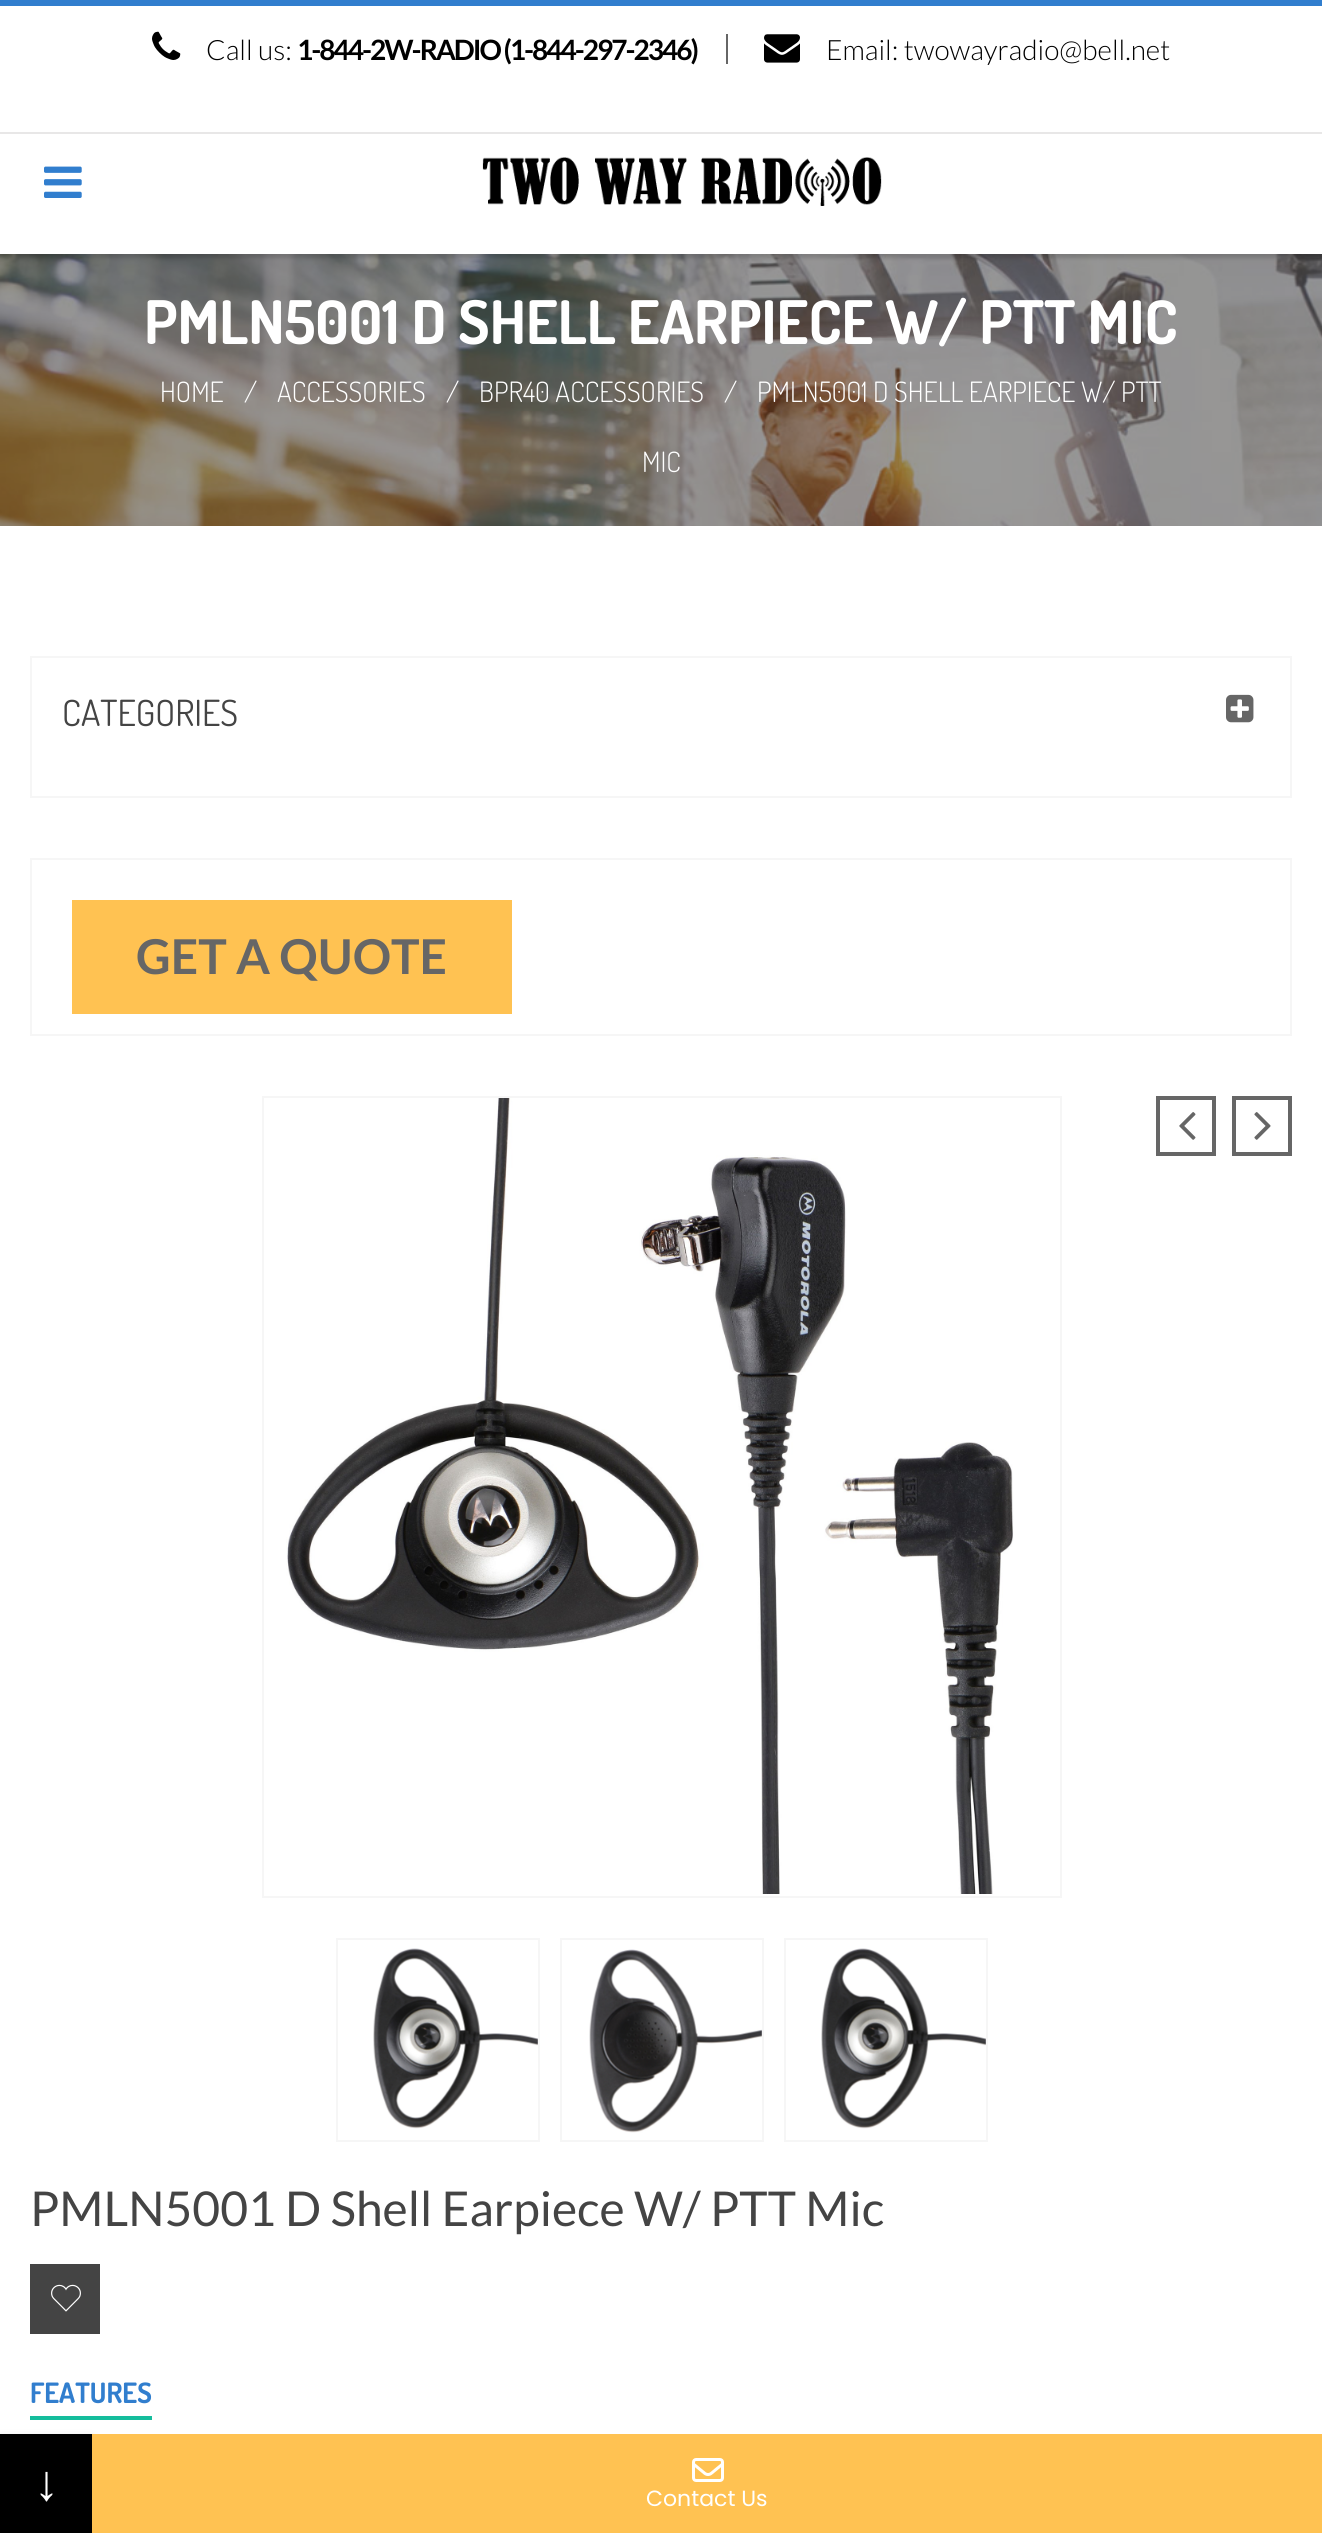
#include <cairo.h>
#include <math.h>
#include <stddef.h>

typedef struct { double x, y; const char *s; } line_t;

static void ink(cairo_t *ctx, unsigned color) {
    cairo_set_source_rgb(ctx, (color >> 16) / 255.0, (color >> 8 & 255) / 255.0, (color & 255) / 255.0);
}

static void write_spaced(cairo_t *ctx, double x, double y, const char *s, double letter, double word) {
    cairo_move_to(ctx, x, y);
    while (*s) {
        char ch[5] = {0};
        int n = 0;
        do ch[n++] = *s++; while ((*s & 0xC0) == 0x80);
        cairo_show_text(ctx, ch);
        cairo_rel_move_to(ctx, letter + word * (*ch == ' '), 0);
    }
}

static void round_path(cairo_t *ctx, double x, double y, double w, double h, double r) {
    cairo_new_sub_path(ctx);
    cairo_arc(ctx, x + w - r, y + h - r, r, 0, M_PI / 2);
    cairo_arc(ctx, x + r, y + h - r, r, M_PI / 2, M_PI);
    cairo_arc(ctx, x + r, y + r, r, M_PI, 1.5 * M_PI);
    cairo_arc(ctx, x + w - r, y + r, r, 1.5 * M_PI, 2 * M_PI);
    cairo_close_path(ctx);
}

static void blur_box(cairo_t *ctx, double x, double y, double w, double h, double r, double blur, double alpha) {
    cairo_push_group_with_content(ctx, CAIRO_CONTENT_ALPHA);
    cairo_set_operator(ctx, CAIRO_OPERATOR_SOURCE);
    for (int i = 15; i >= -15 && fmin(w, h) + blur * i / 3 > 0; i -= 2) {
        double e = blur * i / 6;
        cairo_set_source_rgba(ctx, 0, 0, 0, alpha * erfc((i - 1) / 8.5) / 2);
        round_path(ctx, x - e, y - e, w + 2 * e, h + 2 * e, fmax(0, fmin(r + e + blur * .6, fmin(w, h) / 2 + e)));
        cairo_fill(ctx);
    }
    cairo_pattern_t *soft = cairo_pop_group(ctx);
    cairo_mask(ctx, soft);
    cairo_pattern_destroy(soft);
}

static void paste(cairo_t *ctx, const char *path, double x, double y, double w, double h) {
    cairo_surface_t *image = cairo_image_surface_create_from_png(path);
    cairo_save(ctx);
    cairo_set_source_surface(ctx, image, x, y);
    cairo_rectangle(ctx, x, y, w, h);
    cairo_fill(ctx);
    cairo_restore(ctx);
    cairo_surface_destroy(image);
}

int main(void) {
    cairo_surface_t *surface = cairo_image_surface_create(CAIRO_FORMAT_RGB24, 1322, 2533);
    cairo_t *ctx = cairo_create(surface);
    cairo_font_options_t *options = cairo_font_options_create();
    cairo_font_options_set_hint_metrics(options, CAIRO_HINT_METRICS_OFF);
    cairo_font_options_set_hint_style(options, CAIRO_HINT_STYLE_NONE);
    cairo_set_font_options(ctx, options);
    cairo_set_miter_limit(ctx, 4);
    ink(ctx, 0xFFFFFF);
    cairo_paint(ctx);
    ink(ctx, 0x317ECE);
    cairo_rectangle(ctx, 0, 0, 1322, 6);
    cairo_fill(ctx);
    ink(ctx, 0xE8E7E7);
    cairo_rectangle(ctx, 0, 132, 1322, 2);
    cairo_fill(ctx);
    paste(ctx, "media/1.png", 152, 31, 29, 29);
    cairo_select_font_face(ctx, "Lato Light", CAIRO_FONT_SLANT_NORMAL, CAIRO_FONT_WEIGHT_NORMAL);
    cairo_set_font_size(ctx, 28);
    ink(ctx, 0x000000);
    cairo_move_to(ctx, 206, 60);
    cairo_show_text(ctx, "Call us:");
    ink(ctx, 0x666666);
    cairo_rectangle(ctx, 726, 34, 2, 30);
    cairo_fill(ctx);
    cairo_select_font_face(ctx, "Lato", CAIRO_FONT_SLANT_NORMAL, CAIRO_FONT_WEIGHT_BOLD);
    ink(ctx, 0x000000);
    write_spaced(ctx, 297, 60, "1-844-2W-RADIO (1-844-297-2346)", -2, 0);
    paste(ctx, "media/2.png", 764, 34, 36, 29);
    cairo_select_font_face(ctx, "Lato Light", CAIRO_FONT_SLANT_NORMAL, CAIRO_FONT_WEIGHT_NORMAL);
    cairo_move_to(ctx, 826, 60);
    cairo_show_text(ctx, "Email: twowayradio@bell.net");
    paste(ctx, "media/3.png", 44, 166, 38, 32);
    paste(ctx, "media/4.png", 482, 157, 400, 49);
    paste(ctx, "media/5.png", 0, 254, 1322, 272);
    cairo_select_font_face(ctx, "Dosis", CAIRO_FONT_SLANT_NORMAL, CAIRO_FONT_WEIGHT_BOLD);
    cairo_set_font_size(ctx, 60);
    ink(ctx, 0xFFFFFF);
    cairo_move_to(ctx, 144, 344);
    cairo_show_text(ctx, "PMLN5001 D SHELL EARPIECE W/ PTT MIC");
    cairo_select_font_face(ctx, "Dosis Light", CAIRO_FONT_SLANT_NORMAL, CAIRO_FONT_WEIGHT_NORMAL);
    cairo_set_font_size(ctx, 28);
    {
        static const line_t items[] = {
            {160, 402, "HOME"},
            {244, 402, "/"},
            {277, 402, "ACCESSORIES"},
            {446, 402, "/"},
            {479, 402, "BPR40 ACCESSORIES"},
            {724, 402, "/"},
            {757, 402, "PMLN5001 D SHELL EARPIECE W/ PTT"},
            {642, 472, "MIC"},
        };
        for (size_t i = 0; i < sizeof items / sizeof *items; i++) {
            cairo_move_to(ctx, items[i].x, items[i].y);
            cairo_show_text(ctx, items[i].s);
        }
    }
    cairo_rectangle(ctx, 31, 657, 1260, 140);
    ink(ctx, 0xF6F6F6);
    cairo_stroke(ctx);
    cairo_select_font_face(ctx, "Dosis", CAIRO_FONT_SLANT_NORMAL, CAIRO_FONT_WEIGHT_NORMAL);
    cairo_set_font_size(ctx, 36);
    ink(ctx, 0x444444);
    cairo_move_to(ctx, 62, 726);
    cairo_show_text(ctx, "CATEGORIES");
    paste(ctx, "media/6.png", 1226, 694, 28, 29);
    cairo_rectangle(ctx, 31, 859, 1260, 176);
    ink(ctx, 0xF6F6F6);
    cairo_stroke(ctx);
    ink(ctx, 0xFFC252);
    cairo_rectangle(ctx, 72, 900, 440, 114);
    cairo_fill(ctx);
    cairo_select_font_face(ctx, "Lato", CAIRO_FONT_SLANT_NORMAL, CAIRO_FONT_WEIGHT_BOLD);
    cairo_set_font_size(ctx, 48);
    ink(ctx, 0x666666);
    cairo_move_to(ctx, 136, 974);
    cairo_show_text(ctx, "GET A QUOTE");
    cairo_rectangle(ctx, 263, 1097, 798, 800);
    ink(ctx, 0xF6F6F6);
    cairo_stroke(ctx);
    paste(ctx, "media/7.png", 286, 1098, 728, 796);
    cairo_rectangle(ctx, 337, 1939, 202, 202);
    cairo_stroke(ctx);
    paste(ctx, "media/8.png", 373, 1948, 165, 181);
    cairo_rectangle(ctx, 561, 1939, 202, 202);
    cairo_stroke(ctx);
    paste(ctx, "media/9.png", 589, 1949, 173, 184);
    cairo_rectangle(ctx, 785, 1939, 202, 202);
    cairo_stroke(ctx);
    paste(ctx, "media/10.png", 821, 1948, 165, 181);
    cairo_rectangle(ctx, 1158, 1098, 56, 56);
    ink(ctx, 0x666666);
    cairo_set_line_width(ctx, 4);
    cairo_stroke(ctx);
    paste(ctx, "media/11.png", 1179, 1112, 17, 28);
    cairo_rectangle(ctx, 1234, 1098, 56, 56);
    cairo_stroke(ctx);
    paste(ctx, "media/12.png", 1254, 1112, 17, 28);
    cairo_select_font_face(ctx, "Lato", CAIRO_FONT_SLANT_NORMAL, CAIRO_FONT_WEIGHT_NORMAL);
    ink(ctx, 0x444444);
    cairo_move_to(ctx, 30, 2226);
    cairo_show_text(ctx, "PMLN5001 D Shell Earpiece W/ PTT Mic");
    cairo_rectangle(ctx, 30, 2264, 70, 70);
    cairo_fill(ctx);
    paste(ctx, "media/13.png", 51, 2284, 30, 28);
    ink(ctx, 0x15BD9C);
    cairo_rectangle(ctx, 30, 2416, 122, 4);
    cairo_fill(ctx);
    cairo_select_font_face(ctx, "Dosis", CAIRO_FONT_SLANT_NORMAL, CAIRO_FONT_WEIGHT_BOLD);
    cairo_set_font_size(ctx, 28);
    ink(ctx, 0x317ECE);
    cairo_move_to(ctx, 30, 2403);
    cairo_show_text(ctx, "FEATURES");
    ink(ctx, 0x000000);
    blur_box(ctx, 0, 2440, 92, 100, 0, 6, 0.16);
    ink(ctx, 0x000000);
    cairo_rectangle(ctx, 0, 2434, 92, 99);
    cairo_fill(ctx);
    cairo_select_font_face(ctx, "Liberation Serif", CAIRO_FONT_SLANT_NORMAL, CAIRO_FONT_WEIGHT_NORMAL);
    cairo_set_font_size(ctx, 50);
    ink(ctx, 0xFFFFFF);
    cairo_move_to(ctx, 34, 2500);
    cairo_show_text(ctx, "↓");
    ink(ctx, 0xFFC252);
    cairo_rectangle(ctx, 92, 2434, 1230, 99);
    cairo_fill(ctx);
    paste(ctx, "media/14.png", 692, 2458, 32, 24);
    cairo_select_font_face(ctx, "Poppins", CAIRO_FONT_SLANT_NORMAL, CAIRO_FONT_WEIGHT_NORMAL);
    cairo_set_font_size(ctx, 22);
    ink(ctx, 0xFFFFFF);
    cairo_move_to(ctx, 646, 2506);
    cairo_show_text(ctx, "Contact Us");
    cairo_surface_write_to_png(surface, "image.png");
    cairo_font_options_destroy(options);
    cairo_destroy(ctx);
    cairo_surface_destroy(surface);
    return 0;
}
